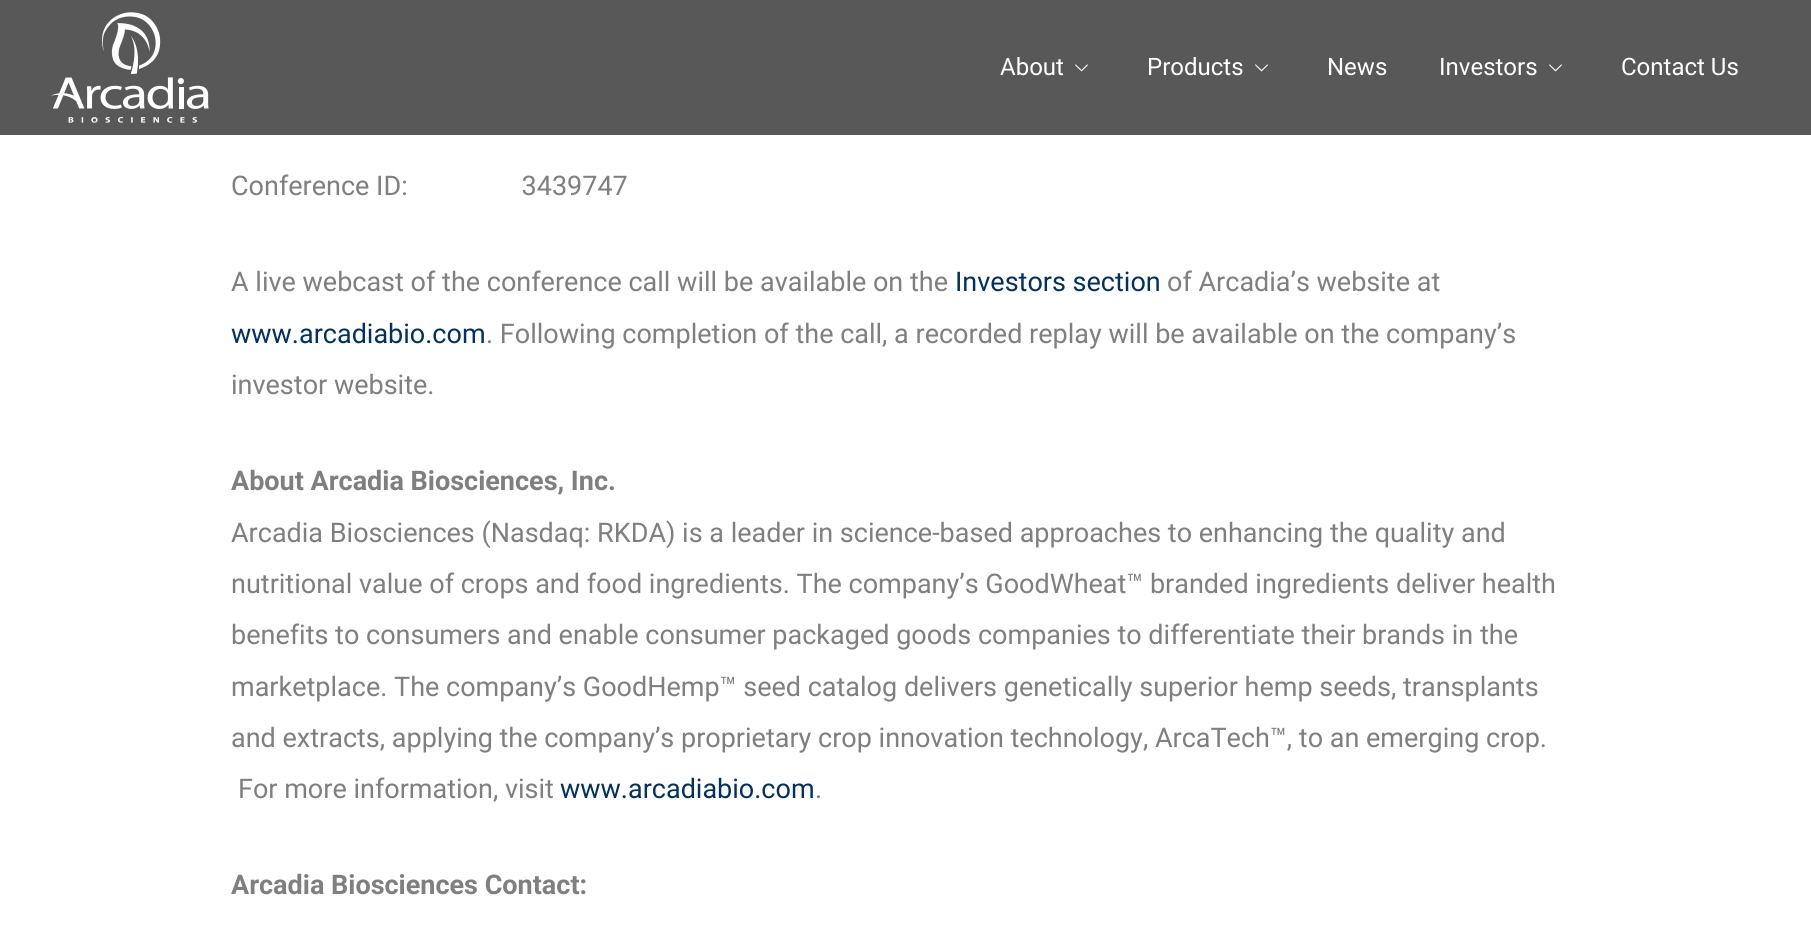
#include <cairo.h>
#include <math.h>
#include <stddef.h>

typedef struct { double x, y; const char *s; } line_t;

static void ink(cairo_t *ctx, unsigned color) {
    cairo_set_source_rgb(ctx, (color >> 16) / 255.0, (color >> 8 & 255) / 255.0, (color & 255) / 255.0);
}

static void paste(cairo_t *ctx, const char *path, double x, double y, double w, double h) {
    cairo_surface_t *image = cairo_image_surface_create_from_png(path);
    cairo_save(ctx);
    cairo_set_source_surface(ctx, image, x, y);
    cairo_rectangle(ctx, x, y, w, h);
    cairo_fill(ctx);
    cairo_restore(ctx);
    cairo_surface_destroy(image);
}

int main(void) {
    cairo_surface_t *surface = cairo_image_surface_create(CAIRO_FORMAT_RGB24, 1811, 925);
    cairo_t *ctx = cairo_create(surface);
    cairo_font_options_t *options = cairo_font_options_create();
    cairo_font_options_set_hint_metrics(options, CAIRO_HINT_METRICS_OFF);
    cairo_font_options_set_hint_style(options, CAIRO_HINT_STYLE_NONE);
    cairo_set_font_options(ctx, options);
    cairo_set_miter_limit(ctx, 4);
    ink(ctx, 0xFFFFFF);
    cairo_paint(ctx);
    cairo_set_source_rgba(ctx, 0.275, 0.275, 0.275, 0.9);
    cairo_rectangle(ctx, 0, 0, 1811, 135);
    cairo_fill(ctx);
    paste(ctx, "media/1.png", 51, 12, 158, 111);
    cairo_select_font_face(ctx, "Roboto", CAIRO_FONT_SLANT_NORMAL, CAIRO_FONT_WEIGHT_NORMAL);
    cairo_set_font_size(ctx, 24);
    ink(ctx, 0xFFFFFF);
    cairo_move_to(ctx, 1000, 75);
    cairo_show_text(ctx, "About");
    paste(ctx, "media/2.png", 1075, 64, 13, 8);
    cairo_move_to(ctx, 1147, 75);
    cairo_show_text(ctx, "Products");
    paste(ctx, "media/2.png", 1255, 64, 13, 8);
    cairo_move_to(ctx, 1327, 75);
    cairo_show_text(ctx, "News");
    cairo_move_to(ctx, 1439, 75);
    cairo_show_text(ctx, "Investors");
    paste(ctx, "media/2.png", 1549, 64, 13, 8);
    cairo_move_to(ctx, 1621, 75);
    cairo_show_text(ctx, "Contact Us");
    cairo_set_font_size(ctx, 27);
    ink(ctx, 0x7F7F7F);
    cairo_move_to(ctx, 231, 195);
    cairo_show_text(ctx, "Conference ID:                 3439747");
    cairo_move_to(ctx, 231, 291);
    cairo_show_text(ctx, "A live webcast of the conference call will be available on the");
    ink(ctx, 0x023160);
    cairo_move_to(ctx, 955, 291);
    cairo_show_text(ctx, "Investors section");
    ink(ctx, 0x7F7F7F);
    cairo_move_to(ctx, 1167, 291);
    cairo_show_text(ctx, "of Arcadia’s website at");
    ink(ctx, 0x023160);
    cairo_move_to(ctx, 231, 343);
    cairo_show_text(ctx, "www.arcadiabio.com");
    ink(ctx, 0x7F7F7F);
    cairo_move_to(ctx, 486, 343);
    cairo_show_text(ctx, ". Following completion of the call, a recorded replay will be available on the company’s");
    cairo_move_to(ctx, 231, 394);
    cairo_show_text(ctx, "investor website.");
    cairo_select_font_face(ctx, "Roboto", CAIRO_FONT_SLANT_NORMAL, CAIRO_FONT_WEIGHT_BOLD);
    cairo_move_to(ctx, 231, 490);
    cairo_show_text(ctx, "About Arcadia Biosciences, Inc.");
    cairo_select_font_face(ctx, "Roboto", CAIRO_FONT_SLANT_NORMAL, CAIRO_FONT_WEIGHT_NORMAL);
    {
        static const line_t items[] = {
            {231, 542, "Arcadia Biosciences (Nasdaq: RKDA) is a leader in science-based approaches to enhancing the quality and"},
            {231, 593, "nutritional value of crops and food ingredients. The company’s GoodWheat™ branded ingredients deliver health"},
            {231, 644, "benefits to consumers and enable consumer packaged goods companies to differentiate their brands in the"},
            {231, 696, "marketplace. The company’s GoodHemp™ seed catalog delivers genetically superior hemp seeds, transplants"},
            {231, 747, "and extracts, applying the company’s proprietary crop innovation technology, ArcaTech™, to an emerging crop."},
            {238, 798, "For more information, visit"},
        };
        for (size_t i = 0; i < sizeof items / sizeof *items; i++) {
            cairo_move_to(ctx, items[i].x, items[i].y);
            cairo_show_text(ctx, items[i].s);
        }
    }
    ink(ctx, 0x023160);
    cairo_move_to(ctx, 560, 798);
    cairo_show_text(ctx, "www.arcadiabio.com");
    ink(ctx, 0x7F7F7F);
    cairo_move_to(ctx, 815, 798);
    cairo_show_text(ctx, ".");
    cairo_select_font_face(ctx, "Roboto", CAIRO_FONT_SLANT_NORMAL, CAIRO_FONT_WEIGHT_BOLD);
    cairo_move_to(ctx, 231, 894);
    cairo_show_text(ctx, "Arcadia Biosciences Contact:");
    cairo_surface_write_to_png(surface, "image.png");
    cairo_font_options_destroy(options);
    cairo_destroy(ctx);
    cairo_surface_destroy(surface);
    return 0;
}
